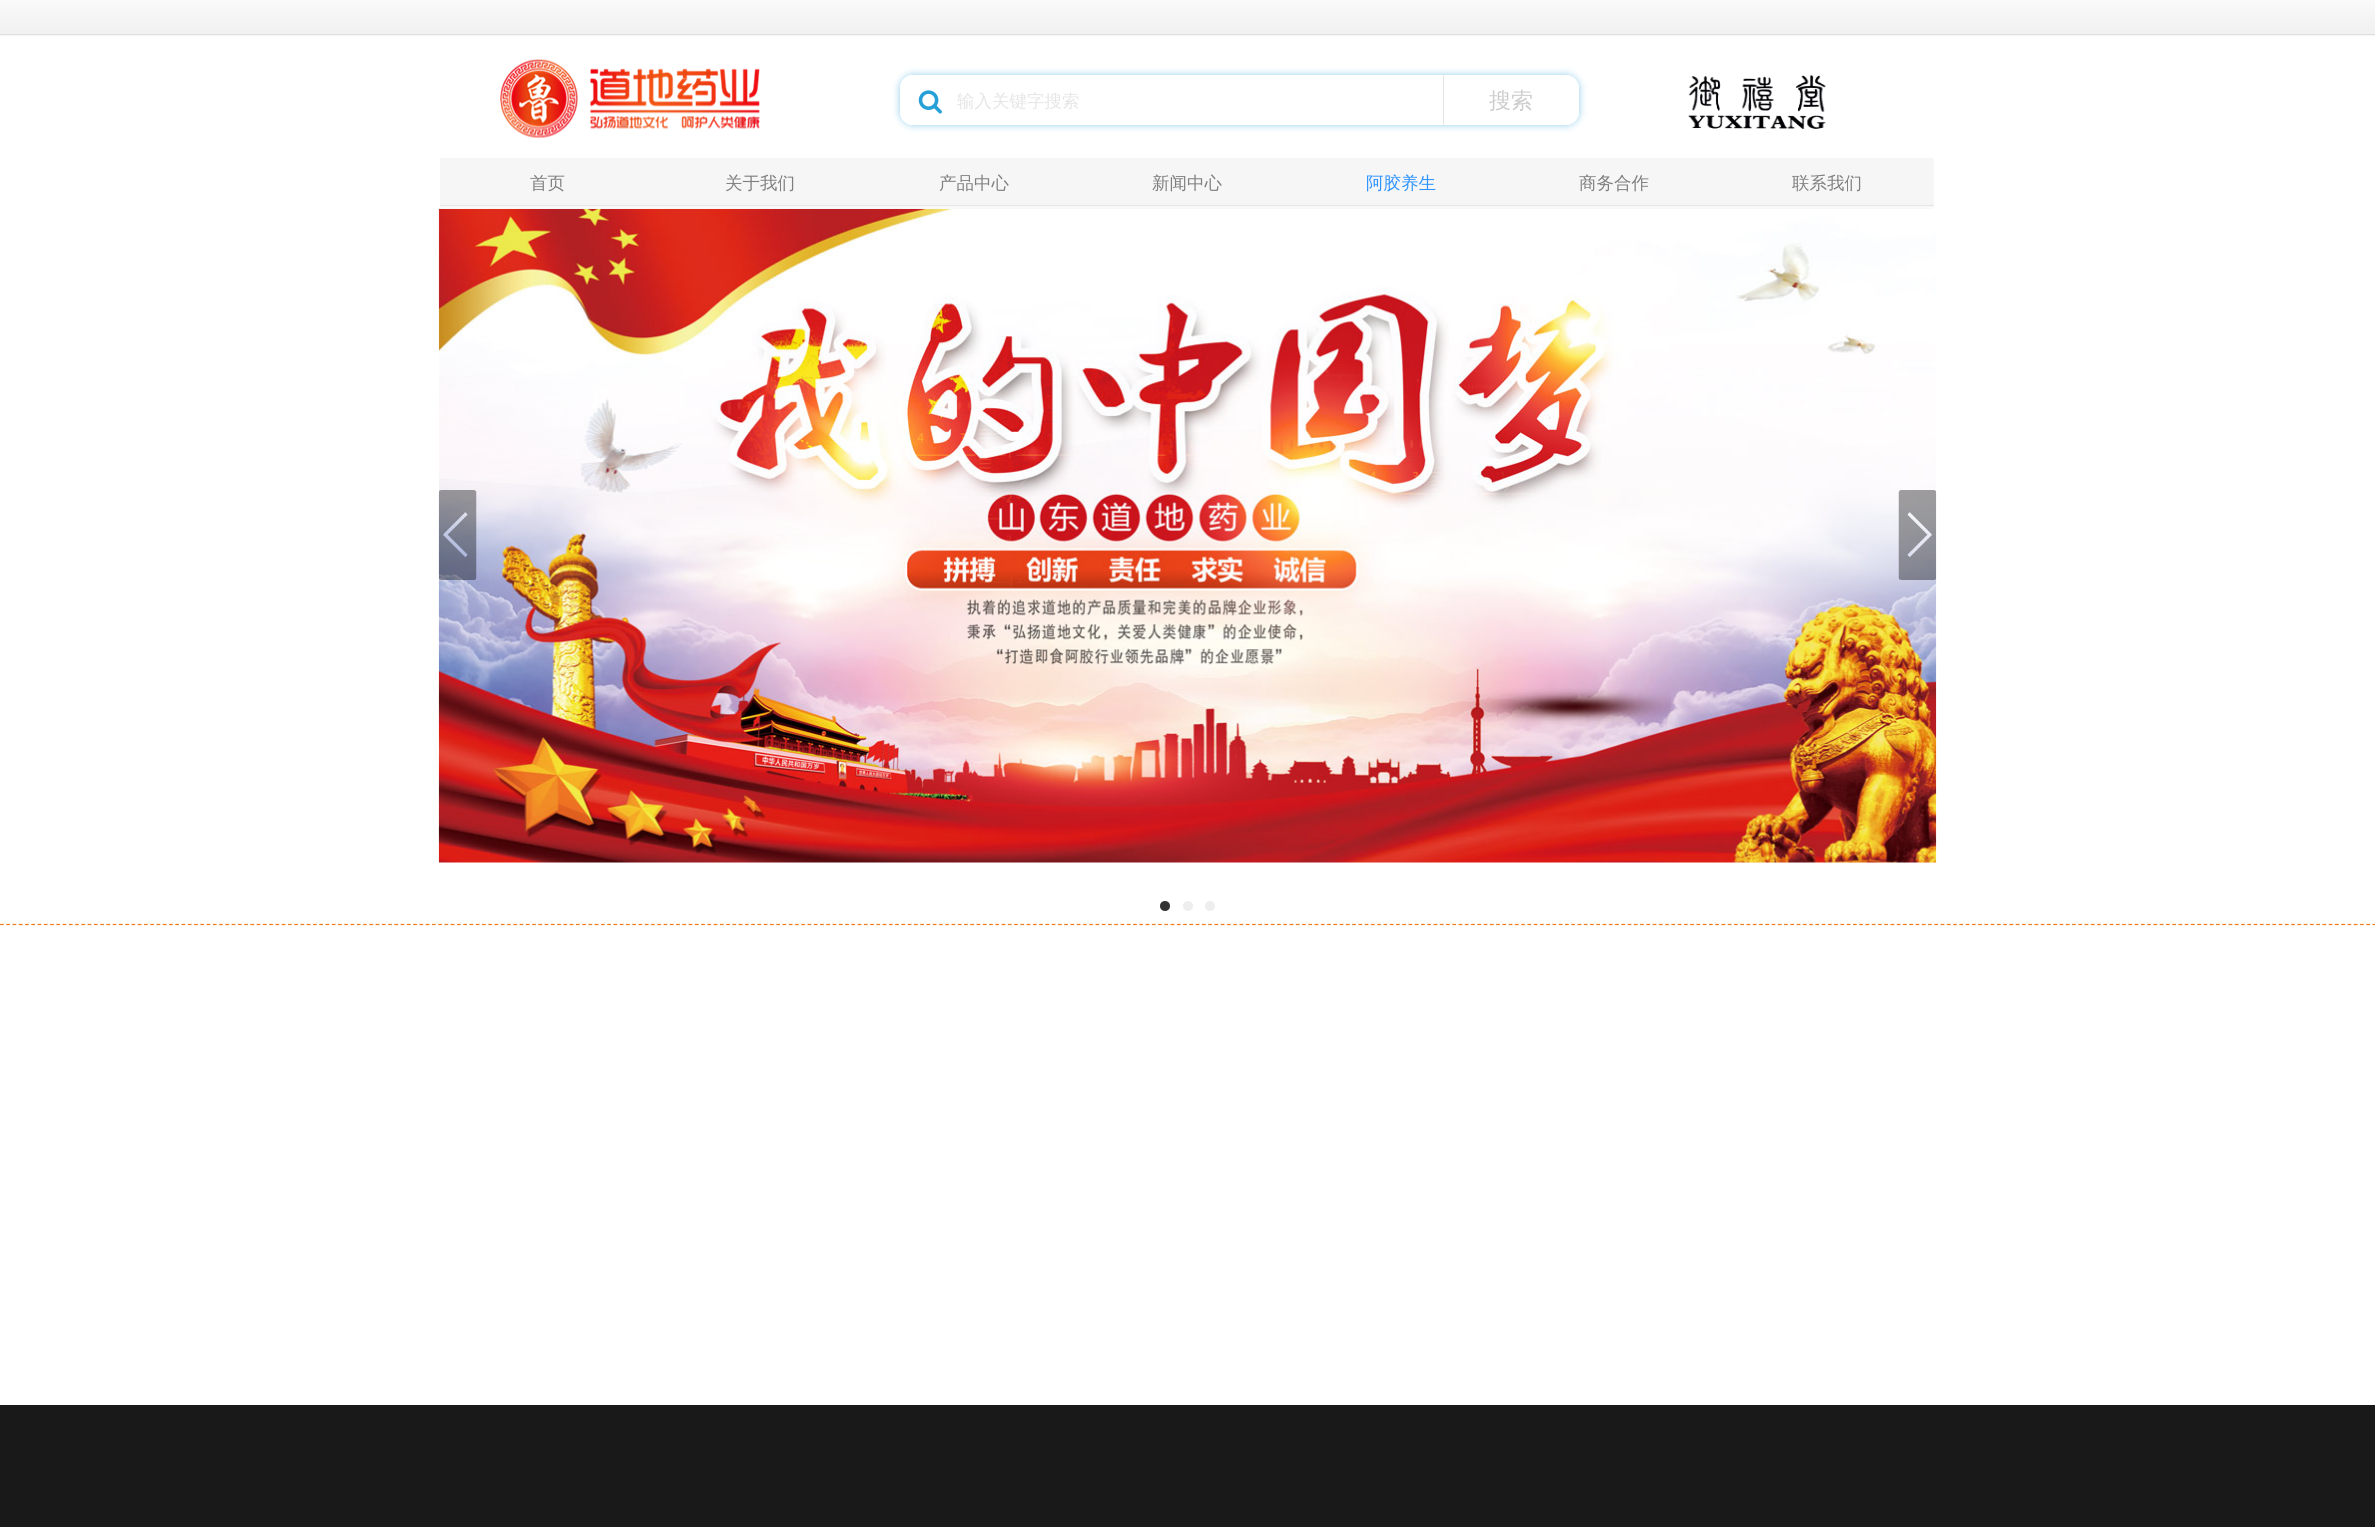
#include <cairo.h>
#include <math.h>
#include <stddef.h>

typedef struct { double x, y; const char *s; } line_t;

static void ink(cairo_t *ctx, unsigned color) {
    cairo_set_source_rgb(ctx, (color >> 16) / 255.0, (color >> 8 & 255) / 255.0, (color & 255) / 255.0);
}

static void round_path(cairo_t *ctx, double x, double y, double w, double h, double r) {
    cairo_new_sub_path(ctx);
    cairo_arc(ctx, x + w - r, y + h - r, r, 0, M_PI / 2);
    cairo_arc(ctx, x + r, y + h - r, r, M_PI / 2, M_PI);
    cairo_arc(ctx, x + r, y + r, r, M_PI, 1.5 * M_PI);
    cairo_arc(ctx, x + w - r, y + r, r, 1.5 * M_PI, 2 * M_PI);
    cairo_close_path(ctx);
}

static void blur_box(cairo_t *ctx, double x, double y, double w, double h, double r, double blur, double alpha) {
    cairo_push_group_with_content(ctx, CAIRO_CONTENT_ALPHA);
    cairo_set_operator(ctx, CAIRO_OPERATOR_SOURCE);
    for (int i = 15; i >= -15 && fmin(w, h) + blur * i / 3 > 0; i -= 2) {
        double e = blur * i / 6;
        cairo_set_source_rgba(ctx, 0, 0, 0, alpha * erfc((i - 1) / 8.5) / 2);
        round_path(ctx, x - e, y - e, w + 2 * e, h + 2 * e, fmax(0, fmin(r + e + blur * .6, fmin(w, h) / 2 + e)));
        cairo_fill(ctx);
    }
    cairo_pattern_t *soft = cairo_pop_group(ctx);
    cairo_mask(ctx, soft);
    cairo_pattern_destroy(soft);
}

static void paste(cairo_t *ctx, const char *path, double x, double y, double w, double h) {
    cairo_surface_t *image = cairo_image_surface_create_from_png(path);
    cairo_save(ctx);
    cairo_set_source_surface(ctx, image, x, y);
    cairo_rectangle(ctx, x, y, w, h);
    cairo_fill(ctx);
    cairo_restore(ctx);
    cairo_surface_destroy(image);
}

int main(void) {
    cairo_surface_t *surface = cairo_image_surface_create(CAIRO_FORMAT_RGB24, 2375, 1527);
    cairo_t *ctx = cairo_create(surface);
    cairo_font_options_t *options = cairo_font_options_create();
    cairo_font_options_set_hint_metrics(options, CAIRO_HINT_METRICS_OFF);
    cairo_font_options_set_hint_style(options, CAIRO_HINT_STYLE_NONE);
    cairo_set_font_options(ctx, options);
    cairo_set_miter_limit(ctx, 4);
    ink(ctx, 0xFFFFFF);
    cairo_paint(ctx);
    paste(ctx, "media/1.png", 0, 0, 2375, 36);
    paste(ctx, "media/2.png", 500, 59, 260, 79);
    cairo_save(ctx);
    cairo_set_fill_rule(ctx, CAIRO_FILL_RULE_EVEN_ODD);
    cairo_new_path(ctx);
    cairo_move_to(ctx, 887, 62);
    cairo_line_to(ctx, 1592, 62);
    cairo_line_to(ctx, 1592, 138);
    cairo_line_to(ctx, 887, 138);
    cairo_close_path(ctx);
    cairo_move_to(ctx, 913, 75);
    cairo_line_to(ctx, 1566, 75);
    cairo_curve_to(ctx, 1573, 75, 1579, 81, 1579, 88);
    cairo_line_to(ctx, 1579, 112);
    cairo_curve_to(ctx, 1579, 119, 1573, 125, 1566, 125);
    cairo_line_to(ctx, 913, 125);
    cairo_curve_to(ctx, 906, 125, 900, 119, 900, 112);
    cairo_line_to(ctx, 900, 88);
    cairo_curve_to(ctx, 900, 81, 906, 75, 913, 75);
    cairo_close_path(ctx);
    cairo_clip(ctx);
    ink(ctx, 0x27A0D8);
    blur_box(ctx, 900, 75, 679, 50, 13, 4, 0.5);
    cairo_restore(ctx);
    ink(ctx, 0xFFFFFF);
    cairo_new_path(ctx);
    cairo_move_to(ctx, 913, 75);
    cairo_line_to(ctx, 1443, 75);
    cairo_line_to(ctx, 1443, 125);
    cairo_line_to(ctx, 913, 125);
    cairo_curve_to(ctx, 906, 125, 900, 119, 900, 112);
    cairo_line_to(ctx, 900, 88);
    cairo_curve_to(ctx, 900, 81, 906, 75, 913, 75);
    cairo_close_path(ctx);
    cairo_fill(ctx);
    paste(ctx, "media/3.png", 918, 90, 24, 24);
    ink(ctx, 0xE5E5E5);
    cairo_rectangle(ctx, 1443, 75, 1, 50);
    cairo_fill(ctx);
    cairo_select_font_face(ctx, "WenQuanYi Zen Hei Medium", CAIRO_FONT_SLANT_NORMAL, CAIRO_FONT_WEIGHT_NORMAL);
    cairo_set_font_size(ctx, 17.5);
    cairo_move_to(ctx, 957, 107);
    cairo_show_text(ctx, "输入关键字搜索");
    cairo_set_font_size(ctx, 22);
    ink(ctx, 0xCCCCCC);
    cairo_move_to(ctx, 1489, 108);
    cairo_show_text(ctx, "搜索");
    paste(ctx, "media/4.png", 1688, 75, 138, 54);
    paste(ctx, "media/6.png", 438, 208, 1499, 655);
    paste(ctx, "media/5.png", 440, 158, 1494, 51);
    cairo_set_font_size(ctx, 17.5);
    ink(ctx, 0x7F7F7F);
    {
        static const line_t items[] = {
            {530, 189, "首页"},
            {725, 189, "关于我们"},
            {939, 189, "产品中心"},
            {1152, 189, "新闻中心"},
        };
        for (size_t i = 0; i < sizeof items / sizeof *items; i++) {
            cairo_move_to(ctx, items[i].x, items[i].y);
            cairo_show_text(ctx, items[i].s);
        }
    }
    ink(ctx, 0x2D93FF);
    cairo_move_to(ctx, 1366, 189);
    cairo_show_text(ctx, "阿胶养生");
    ink(ctx, 0x7F7F7F);
    cairo_move_to(ctx, 1579, 189);
    cairo_show_text(ctx, "商务合作");
    cairo_move_to(ctx, 1792, 189);
    cairo_show_text(ctx, "联系我们");
    paste(ctx, "media/7.png", 438, 490, 39, 90);
    paste(ctx, "media/8.png", 1898, 490, 39, 90);
    ink(ctx, 0x333333);
    cairo_arc(ctx, 1165, 906, 5, 0, 2 * M_PI);
    cairo_fill(ctx);
    ink(ctx, 0xEEEEEE);
    cairo_arc(ctx, 1188, 906, 5, 0, 2 * M_PI);
    cairo_fill(ctx);
    cairo_arc(ctx, 1210, 906, 5, 0, 2 * M_PI);
    cairo_fill(ctx);
    cairo_new_path(ctx);
    cairo_move_to(ctx, 0, 924.5);
    cairo_line_to(ctx, 2375, 924.5);
    ink(ctx, 0xF47A17);
    cairo_set_line_width(ctx, 1.2);
    cairo_set_dash(ctx, (double[]){3.75, 2.51}, 2, 0);
    cairo_stroke(ctx);
    ink(ctx, 0x191919);
    cairo_rectangle(ctx, 0, 1405, 2375, 122);
    cairo_fill(ctx);
    cairo_surface_write_to_png(surface, "image.png");
    cairo_font_options_destroy(options);
    cairo_destroy(ctx);
    cairo_surface_destroy(surface);
    return 0;
}
